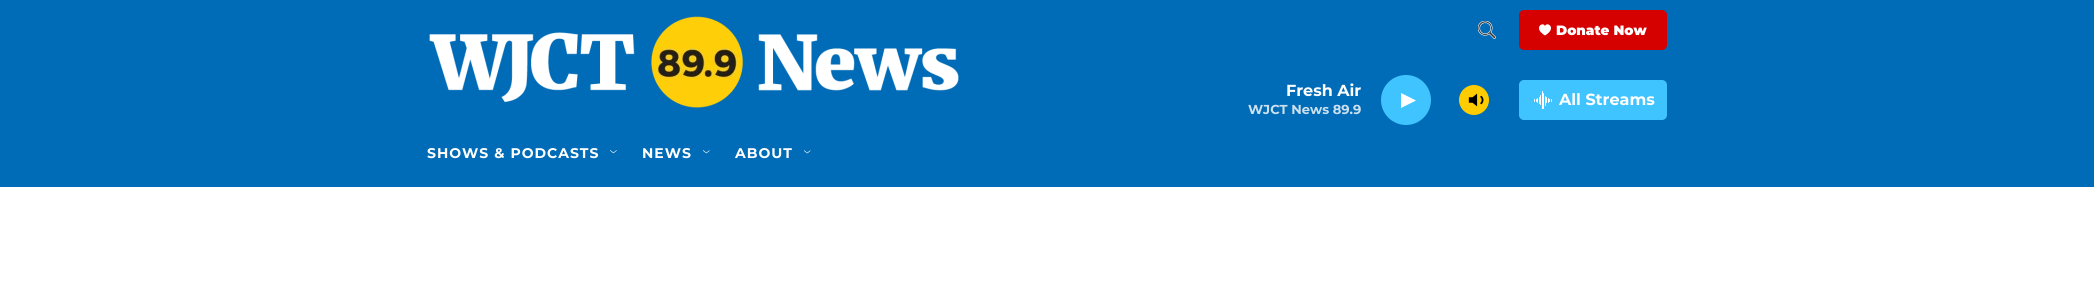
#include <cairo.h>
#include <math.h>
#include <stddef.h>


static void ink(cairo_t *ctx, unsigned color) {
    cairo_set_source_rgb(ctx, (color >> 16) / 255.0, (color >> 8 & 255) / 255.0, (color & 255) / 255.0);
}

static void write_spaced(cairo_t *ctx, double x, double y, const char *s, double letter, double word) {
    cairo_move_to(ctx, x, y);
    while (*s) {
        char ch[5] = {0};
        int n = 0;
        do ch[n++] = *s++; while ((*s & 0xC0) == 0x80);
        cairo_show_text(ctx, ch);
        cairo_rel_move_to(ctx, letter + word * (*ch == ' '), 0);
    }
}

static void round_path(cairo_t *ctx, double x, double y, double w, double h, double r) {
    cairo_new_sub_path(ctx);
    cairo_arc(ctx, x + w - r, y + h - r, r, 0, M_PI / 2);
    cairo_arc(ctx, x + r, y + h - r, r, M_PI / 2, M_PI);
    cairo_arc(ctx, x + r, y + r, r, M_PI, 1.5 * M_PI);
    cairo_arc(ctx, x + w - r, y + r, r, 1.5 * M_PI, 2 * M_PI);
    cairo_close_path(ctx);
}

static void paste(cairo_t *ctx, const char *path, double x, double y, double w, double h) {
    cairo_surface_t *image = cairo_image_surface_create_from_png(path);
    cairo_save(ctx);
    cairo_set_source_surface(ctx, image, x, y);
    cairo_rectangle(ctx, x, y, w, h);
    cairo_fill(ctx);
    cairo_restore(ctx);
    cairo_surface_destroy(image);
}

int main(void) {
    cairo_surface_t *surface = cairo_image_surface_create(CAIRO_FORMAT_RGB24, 2094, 303);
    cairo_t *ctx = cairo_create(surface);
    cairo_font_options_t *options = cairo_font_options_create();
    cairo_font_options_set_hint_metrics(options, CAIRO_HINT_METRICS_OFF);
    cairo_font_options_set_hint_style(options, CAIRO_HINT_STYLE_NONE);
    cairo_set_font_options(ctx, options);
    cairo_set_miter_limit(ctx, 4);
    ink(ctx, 0xFFFFFF);
    cairo_paint(ctx);
    ink(ctx, 0x006BB6);
    cairo_rectangle(ctx, 0, 0, 2094, 187);
    cairo_fill(ctx);
    paste(ctx, "media/1.png", 429, 16, 530, 92);
    paste(ctx, "media/2.png", 1478, 21, 18, 18);
    ink(ctx, 0xD50000);
    round_path(ctx, 1519, 10, 148, 40, 5);
    cairo_fill(ctx);
    ink(ctx, 0xFFFFFF);
    cairo_new_path(ctx);
    cairo_move_to(ctx, 1545, 26);
    cairo_curve_to(ctx, 1543, 21, 1532.5, 28, 1545, 35.5);
    cairo_curve_to(ctx, 1557.5, 28, 1547, 21, 1545, 26);
    cairo_close_path(ctx);
    cairo_fill(ctx);
    cairo_select_font_face(ctx, "Montserrat Black", CAIRO_FONT_SLANT_NORMAL, CAIRO_FONT_WEIGHT_NORMAL);
    cairo_set_font_size(ctx, 13.5);
    cairo_move_to(ctx, 1556, 35);
    cairo_show_text(ctx, "Donate Now");
    cairo_select_font_face(ctx, "Montserrat", CAIRO_FONT_SLANT_NORMAL, CAIRO_FONT_WEIGHT_BOLD);
    cairo_set_font_size(ctx, 16);
    cairo_move_to(ctx, 1286, 96);
    cairo_show_text(ctx, "Fresh Air");
    cairo_set_font_size(ctx, 13);
    ink(ctx, 0xCCE1F0);
    cairo_move_to(ctx, 1248, 114);
    cairo_show_text(ctx, "WJCT News 89.9");
    ink(ctx, 0x40C4FF);
    cairo_new_path(ctx);
    cairo_arc(ctx, 1406, 100, 25, 0, 2 * M_PI);
    cairo_fill(ctx);
    ink(ctx, 0xFFFFFF);
    cairo_new_path(ctx);
    cairo_move_to(ctx, 1401, 93);
    cairo_line_to(ctx, 1416, 100.5);
    cairo_line_to(ctx, 1401, 108);
    cairo_close_path(ctx);
    cairo_fill(ctx);
    ink(ctx, 0xFFCC00);
    cairo_arc(ctx, 1474, 100, 15, 0, 2 * M_PI);
    cairo_fill(ctx);
    paste(ctx, "media/3.png", 1468, 93, 16, 14);
    ink(ctx, 0x40C4FF);
    round_path(ctx, 1519, 80, 148, 40, 5);
    cairo_fill(ctx);
    paste(ctx, "media/4.png", 1534, 91, 18, 18);
    cairo_set_font_size(ctx, 16);
    ink(ctx, 0xFFFFFF);
    cairo_move_to(ctx, 1559, 105);
    cairo_show_text(ctx, "All Streams");
    cairo_set_font_size(ctx, 14);
    write_spaced(ctx, 427, 158, "SHOWS & PODCASTS", 1, 0);
    paste(ctx, "media/5.png", 610, 150, 7, 4);
    write_spaced(ctx, 642, 158, "NEWS", 1, 0);
    paste(ctx, "media/6.png", 703, 150, 7, 4);
    write_spaced(ctx, 735, 158, "ABOUT", 1, 0);
    paste(ctx, "media/7.png", 804, 150, 7, 4);
    cairo_surface_write_to_png(surface, "image.png");
    cairo_font_options_destroy(options);
    cairo_destroy(ctx);
    cairo_surface_destroy(surface);
    return 0;
}
